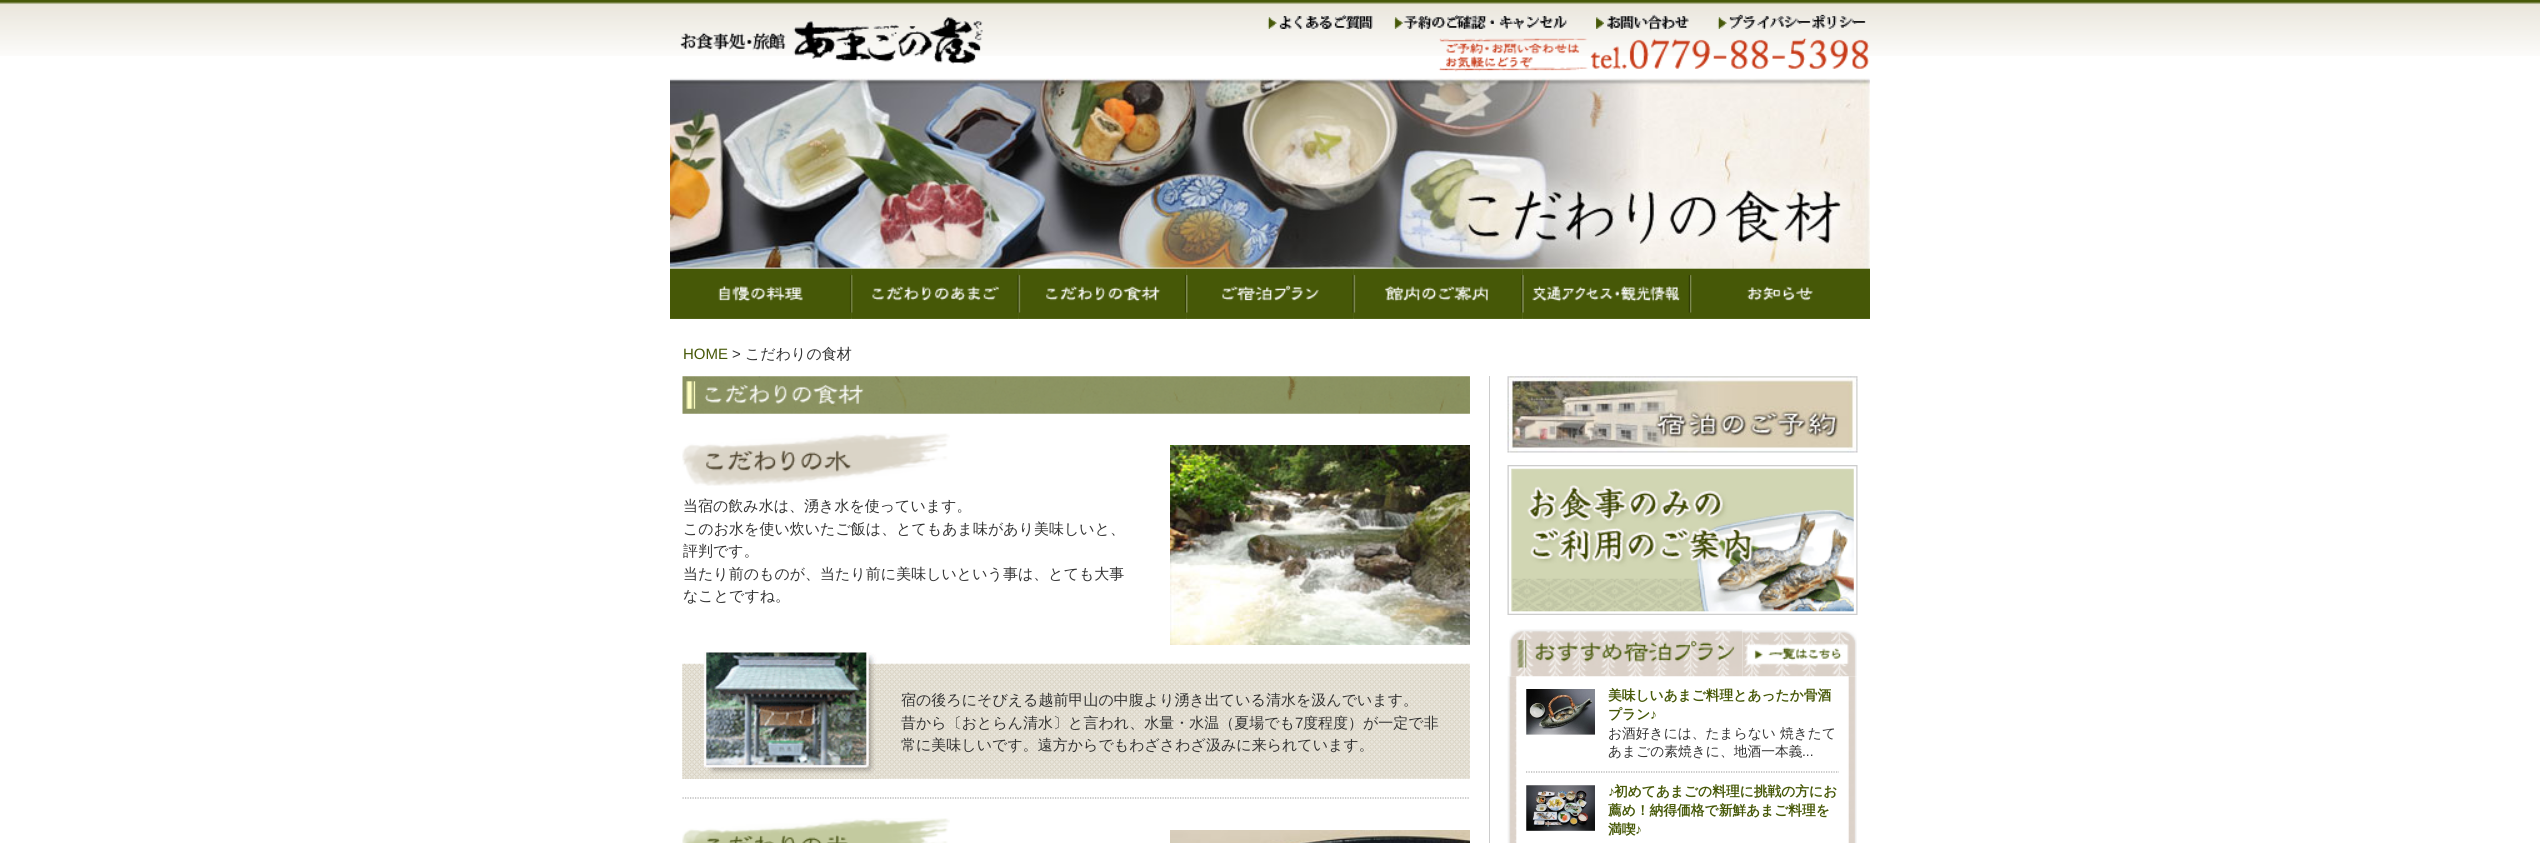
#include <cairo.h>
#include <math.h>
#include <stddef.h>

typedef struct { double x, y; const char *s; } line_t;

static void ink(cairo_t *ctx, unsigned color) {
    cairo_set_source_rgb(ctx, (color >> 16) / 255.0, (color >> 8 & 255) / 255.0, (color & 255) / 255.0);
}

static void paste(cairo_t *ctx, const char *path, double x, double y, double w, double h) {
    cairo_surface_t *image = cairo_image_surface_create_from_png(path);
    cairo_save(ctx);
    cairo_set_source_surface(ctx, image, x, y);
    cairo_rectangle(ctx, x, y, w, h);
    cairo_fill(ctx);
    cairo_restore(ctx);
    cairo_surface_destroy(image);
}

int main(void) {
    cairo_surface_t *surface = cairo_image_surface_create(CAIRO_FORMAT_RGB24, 2540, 843);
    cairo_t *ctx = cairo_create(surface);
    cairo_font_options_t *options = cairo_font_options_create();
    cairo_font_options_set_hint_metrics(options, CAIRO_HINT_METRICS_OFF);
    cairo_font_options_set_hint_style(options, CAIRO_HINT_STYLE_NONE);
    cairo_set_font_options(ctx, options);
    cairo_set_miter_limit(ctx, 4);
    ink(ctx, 0xFFFFFF);
    cairo_paint(ctx);
    paste(ctx, "media/1.png", 0, 0, 2540, 56);
    paste(ctx, "media/2.png", 680, 17, 303, 47);
    paste(ctx, "media/3.png", 1267, 14, 106, 15);
    paste(ctx, "media/4.png", 1268, 14, 105, 15);
    paste(ctx, "media/5.png", 1394, 14, 174, 16);
    paste(ctx, "media/6.png", 1395, 14, 173, 16);
    paste(ctx, "media/7.png", 1596, 14, 93, 17);
    paste(ctx, "media/8.png", 1596, 14, 93, 17);
    paste(ctx, "media/9.png", 1717, 14, 149, 15);
    paste(ctx, "media/10.png", 1718, 14, 148, 15);
    paste(ctx, "media/11.png", 1438, 38, 431, 34);
    paste(ctx, "media/13.png", 670, 268, 182, 51);
    paste(ctx, "media/15.png", 851, 268, 168, 51);
    paste(ctx, "media/17.png", 1018, 268, 169, 51);
    paste(ctx, "media/19.png", 1186, 268, 168, 51);
    paste(ctx, "media/21.png", 1353, 268, 170, 51);
    paste(ctx, "media/23.png", 1522, 268, 168, 51);
    paste(ctx, "media/25.png", 1690, 268, 180, 51);
    paste(ctx, "media/12.png", 670, 78, 1200, 191);
    paste(ctx, "media/14.png", 670, 268, 182, 51);
    paste(ctx, "media/16.png", 851, 268, 168, 51);
    paste(ctx, "media/18.png", 1018, 268, 169, 51);
    paste(ctx, "media/20.png", 1186, 268, 168, 51);
    paste(ctx, "media/22.png", 1353, 268, 170, 51);
    paste(ctx, "media/24.png", 1522, 268, 168, 51);
    paste(ctx, "media/26.png", 1690, 268, 180, 51);
    cairo_select_font_face(ctx, "Liberation Sans", CAIRO_FONT_SLANT_NORMAL, CAIRO_FONT_WEIGHT_NORMAL);
    cairo_set_font_size(ctx, 15);
    ink(ctx, 0x465807);
    cairo_move_to(ctx, 683, 359);
    cairo_show_text(ctx, "HOME");
    ink(ctx, 0x333333);
    cairo_move_to(ctx, 732, 359);
    cairo_show_text(ctx, ">");
    cairo_select_font_face(ctx, "WenQuanYi Zen Hei Medium", CAIRO_FONT_SLANT_NORMAL, CAIRO_FONT_WEIGHT_NORMAL);
    cairo_move_to(ctx, 745, 359);
    cairo_show_text(ctx, "こだわりの食材");
    ink(ctx, 0xCCCCCC);
    cairo_rectangle(ctx, 1489, 376, 1, 467);
    cairo_fill(ctx);
    paste(ctx, "media/27.png", 682, 376, 788, 38);
    cairo_new_path(ctx);
    cairo_move_to(ctx, 682.5, 798);
    cairo_line_to(ctx, 1470, 798);
    ink(ctx, 0xAAAAAA);
    cairo_set_line_width(ctx, 1.2);
    cairo_set_dash(ctx, (double[]){1.25, 1.25}, 2, 0);
    cairo_stroke(ctx);
    paste(ctx, "media/28.png", 682, 433, 268, 53);
    ink(ctx, 0x333333);
    {
        static const line_t items[] = {
            {683, 511, "当宿の飲み水は、湧き水を使っています。"},
            {683, 534, "このお水を使い炊いたご飯は、とてもあま味があり美味しいと、"},
            {683, 556, "評判です。"},
            {683, 579, "当たり前のものが、当たり前に美味しいという事は、とても大事"},
            {683, 601, "なことですね。"},
        };
        for (size_t i = 0; i < sizeof items / sizeof *items; i++) {
            cairo_move_to(ctx, items[i].x, items[i].y);
            cairo_show_text(ctx, items[i].s);
        }
    }
    paste(ctx, "media/29.png", 1170, 445, 300, 200);
    paste(ctx, "media/30.png", 682, 663, 788, 116);
    paste(ctx, "media/31.png", 682, 652, 197, 127);
    cairo_move_to(ctx, 901, 705);
    cairo_show_text(ctx, "宿の後ろにそびえる越前甲山の中腹より湧き出ている清水を汲んでいます。");
    cairo_move_to(ctx, 901, 728);
    cairo_show_text(ctx, "昔から〔おとらん清水〕と言われ、水量・水温（夏場でも");
    cairo_select_font_face(ctx, "Liberation Sans", CAIRO_FONT_SLANT_NORMAL, CAIRO_FONT_WEIGHT_NORMAL);
    cairo_move_to(ctx, 1295, 728);
    cairo_show_text(ctx, "7");
    cairo_select_font_face(ctx, "WenQuanYi Zen Hei Medium", CAIRO_FONT_SLANT_NORMAL, CAIRO_FONT_WEIGHT_NORMAL);
    cairo_move_to(ctx, 1303, 728);
    cairo_show_text(ctx, "度程度）が一定で非");
    cairo_move_to(ctx, 901, 750);
    cairo_show_text(ctx, "常に美味しいです。遠方からでもわざさわざ汲みに来られています。");
    paste(ctx, "media/32.png", 682, 818, 268, 25);
    paste(ctx, "media/33.png", 1170, 830, 300, 13);
    paste(ctx, "media/34.png", 1507, 376, 351, 77);
    paste(ctx, "media/35.png", 1507, 465, 351, 150);
    paste(ctx, "media/38.png", 1507, 676, 350, 167);
    paste(ctx, "media/36.png", 1509, 629, 234, 48);
    paste(ctx, "media/37.png", 1742, 630, 115, 47);
    cairo_new_path(ctx);
    cairo_move_to(ctx, 1526, 772);
    cairo_line_to(ctx, 1839, 772);
    ink(ctx, 0xAAAAAA);
    cairo_stroke(ctx);
    paste(ctx, "media/39.png", 1526, 689, 69, 46);
    cairo_select_font_face(ctx, "WenQuanYi Zen Hei", CAIRO_FONT_SLANT_NORMAL, CAIRO_FONT_WEIGHT_BOLD);
    cairo_set_font_size(ctx, 13.75);
    ink(ctx, 0x465807);
    cairo_move_to(ctx, 1608, 700);
    cairo_show_text(ctx, "美味しいあまご料理とあったか骨酒");
    cairo_move_to(ctx, 1608, 719);
    cairo_show_text(ctx, "プラン");
    cairo_select_font_face(ctx, "Liberation Sans", CAIRO_FONT_SLANT_NORMAL, CAIRO_FONT_WEIGHT_BOLD);
    cairo_move_to(ctx, 1650, 719);
    cairo_show_text(ctx, "♪");
    cairo_select_font_face(ctx, "WenQuanYi Zen Hei Medium", CAIRO_FONT_SLANT_NORMAL, CAIRO_FONT_WEIGHT_NORMAL);
    ink(ctx, 0x333333);
    cairo_move_to(ctx, 1608, 738);
    cairo_show_text(ctx, "お酒好きには、たまらない 焼きたて");
    cairo_move_to(ctx, 1608, 756);
    cairo_show_text(ctx, "あまごの素焼きに、地酒一本義");
    cairo_select_font_face(ctx, "Liberation Sans", CAIRO_FONT_SLANT_NORMAL, CAIRO_FONT_WEIGHT_NORMAL);
    cairo_move_to(ctx, 1802, 756);
    cairo_show_text(ctx, "...");
    paste(ctx, "media/40.png", 1526, 785, 69, 46);
    cairo_select_font_face(ctx, "Liberation Sans", CAIRO_FONT_SLANT_NORMAL, CAIRO_FONT_WEIGHT_BOLD);
    ink(ctx, 0x465807);
    cairo_move_to(ctx, 1608, 796);
    cairo_show_text(ctx, "♪");
    cairo_select_font_face(ctx, "WenQuanYi Zen Hei", CAIRO_FONT_SLANT_NORMAL, CAIRO_FONT_WEIGHT_BOLD);
    {
        static const line_t items[] = {
            {1614, 796, "初めてあまごの料理に挑戦の方にお"},
            {1608, 815, "薦め！納得価格で新鮮あまご料理を"},
            {1608, 834, "満喫"},
        };
        for (size_t i = 0; i < sizeof items / sizeof *items; i++) {
            cairo_move_to(ctx, items[i].x, items[i].y);
            cairo_show_text(ctx, items[i].s);
        }
    }
    cairo_select_font_face(ctx, "Liberation Sans", CAIRO_FONT_SLANT_NORMAL, CAIRO_FONT_WEIGHT_BOLD);
    cairo_move_to(ctx, 1635, 834);
    cairo_show_text(ctx, "♪");
    cairo_surface_write_to_png(surface, "image.png");
    cairo_font_options_destroy(options);
    cairo_destroy(ctx);
    cairo_surface_destroy(surface);
    return 0;
}
